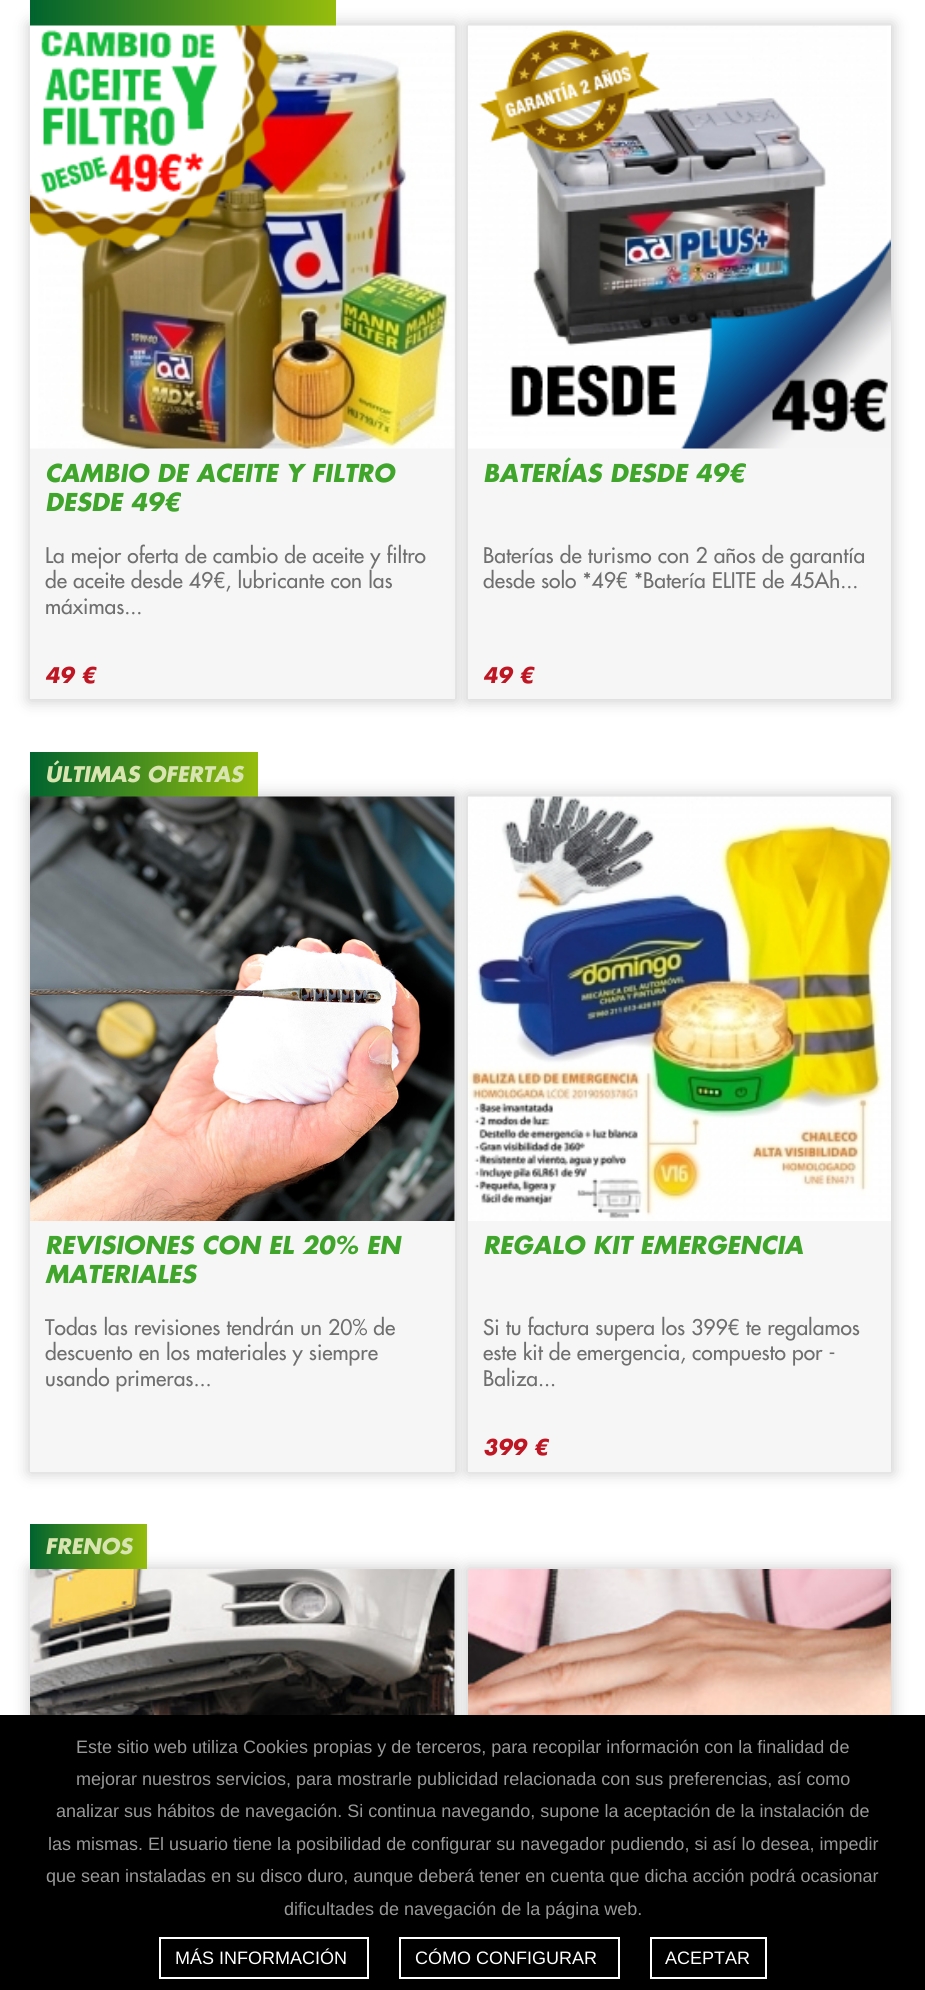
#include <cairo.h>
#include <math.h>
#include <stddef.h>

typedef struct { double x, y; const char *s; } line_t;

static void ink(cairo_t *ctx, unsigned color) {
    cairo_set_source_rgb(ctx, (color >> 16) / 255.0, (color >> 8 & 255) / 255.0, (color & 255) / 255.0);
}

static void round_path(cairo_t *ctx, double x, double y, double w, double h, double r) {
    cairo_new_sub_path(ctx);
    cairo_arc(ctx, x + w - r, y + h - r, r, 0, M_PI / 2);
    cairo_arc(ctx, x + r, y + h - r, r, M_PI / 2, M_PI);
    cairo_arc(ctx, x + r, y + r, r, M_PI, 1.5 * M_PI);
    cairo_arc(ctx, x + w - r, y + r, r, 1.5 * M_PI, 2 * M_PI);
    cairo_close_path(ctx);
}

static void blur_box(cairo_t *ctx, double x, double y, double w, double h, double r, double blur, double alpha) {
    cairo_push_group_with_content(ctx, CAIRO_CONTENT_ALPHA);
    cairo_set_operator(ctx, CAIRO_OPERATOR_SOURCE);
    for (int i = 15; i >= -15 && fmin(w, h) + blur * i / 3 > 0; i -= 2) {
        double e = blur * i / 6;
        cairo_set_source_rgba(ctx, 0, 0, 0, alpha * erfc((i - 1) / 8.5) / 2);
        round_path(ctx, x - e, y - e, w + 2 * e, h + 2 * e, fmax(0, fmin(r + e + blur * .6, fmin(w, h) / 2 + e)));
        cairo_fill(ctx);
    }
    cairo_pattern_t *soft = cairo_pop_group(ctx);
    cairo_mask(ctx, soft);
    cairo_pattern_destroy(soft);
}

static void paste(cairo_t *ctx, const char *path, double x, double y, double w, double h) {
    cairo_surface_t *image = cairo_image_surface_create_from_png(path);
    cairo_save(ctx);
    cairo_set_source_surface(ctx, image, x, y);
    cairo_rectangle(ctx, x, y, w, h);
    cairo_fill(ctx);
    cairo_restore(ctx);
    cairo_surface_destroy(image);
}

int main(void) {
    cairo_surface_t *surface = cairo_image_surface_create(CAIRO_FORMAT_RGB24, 925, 1990);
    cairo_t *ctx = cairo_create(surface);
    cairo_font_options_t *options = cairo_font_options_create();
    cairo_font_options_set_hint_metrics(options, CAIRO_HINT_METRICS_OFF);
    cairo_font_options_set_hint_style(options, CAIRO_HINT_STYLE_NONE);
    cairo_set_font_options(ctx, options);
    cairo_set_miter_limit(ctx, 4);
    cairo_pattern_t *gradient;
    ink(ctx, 0xFFFFFF);
    cairo_paint(ctx);
    ink(ctx, 0xCCCCCC);
    blur_box(ctx, 29, 24, 427, 677, 0, 7.5, 1);
    gradient = cairo_pattern_create_linear(30, 3, 336, 3);
    cairo_pattern_add_color_stop_rgba(gradient, 0, 0, 0.388, 0.18, 1);
    cairo_pattern_add_color_stop_rgba(gradient, 1, 0.588, 0.741, 0.051, 1);
    cairo_set_source(ctx, gradient);
    cairo_pattern_destroy(gradient);
    cairo_rectangle(ctx, 30, 0, 306, 26);
    cairo_fill(ctx);
    ink(ctx, 0xF6F6F6);
    cairo_rectangle(ctx, 30, 26, 425, 673);
    cairo_fill(ctx);
    paste(ctx, "media/1.png", 30, 25, 425, 424);
    cairo_select_font_face(ctx, "Futura", CAIRO_FONT_SLANT_ITALIC, CAIRO_FONT_WEIGHT_BOLD);
    cairo_set_font_size(ctx, 24);
    ink(ctx, 0x40A52B);
    cairo_move_to(ctx, 45, 482);
    cairo_show_text(ctx, "CAMBIO DE ACEITE Y FILTRO");
    cairo_move_to(ctx, 45, 511);
    cairo_show_text(ctx, "DESDE 49€");
    cairo_select_font_face(ctx, "Futura Medium", CAIRO_FONT_SLANT_NORMAL, CAIRO_FONT_WEIGHT_NORMAL);
    cairo_set_font_size(ctx, 21);
    ink(ctx, 0x706F6F);
    {
        static const line_t items[] = {
            {45, 563, "La mejor oferta de cambio de aceite y filtro"},
            {45, 588, "de aceite desde 49€, lubricante con las"},
            {45, 614, "máximas..."},
        };
        for (size_t i = 0; i < sizeof items / sizeof *items; i++) {
            cairo_move_to(ctx, items[i].x, items[i].y);
            cairo_show_text(ctx, items[i].s);
        }
    }
    cairo_select_font_face(ctx, "Futura", CAIRO_FONT_SLANT_ITALIC, CAIRO_FONT_WEIGHT_BOLD);
    ink(ctx, 0xBE1622);
    cairo_move_to(ctx, 45, 683);
    cairo_show_text(ctx, "49 €");
    ink(ctx, 0xCCCCCC);
    blur_box(ctx, 467, 24, 426, 677, 0, 7.5, 1);
    ink(ctx, 0xF6F6F6);
    cairo_rectangle(ctx, 468, 448, 423, 251);
    cairo_fill(ctx);
    paste(ctx, "media/2.png", 468, 25, 423, 424);
    cairo_set_font_size(ctx, 24);
    ink(ctx, 0x40A52B);
    cairo_move_to(ctx, 483, 482);
    cairo_show_text(ctx, "BATERÍAS DESDE 49€");
    cairo_select_font_face(ctx, "Futura Medium", CAIRO_FONT_SLANT_NORMAL, CAIRO_FONT_WEIGHT_NORMAL);
    cairo_set_font_size(ctx, 21);
    ink(ctx, 0x706F6F);
    cairo_move_to(ctx, 483, 563);
    cairo_show_text(ctx, "Baterías de turismo con 2 años de garantía");
    cairo_move_to(ctx, 483, 588);
    cairo_show_text(ctx, "desde solo *49€ *Batería ELITE de 45Ah...");
    cairo_select_font_face(ctx, "Futura", CAIRO_FONT_SLANT_ITALIC, CAIRO_FONT_WEIGHT_BOLD);
    ink(ctx, 0xBE1622);
    cairo_move_to(ctx, 483, 683);
    cairo_show_text(ctx, "49 €");
    ink(ctx, 0xCCCCCC);
    blur_box(ctx, 29, 795, 427, 678, 0, 7.5, 1);
    gradient = cairo_pattern_create_linear(30, 774, 258, 774);
    cairo_pattern_add_color_stop_rgba(gradient, 0, 0, 0.388, 0.18, 1);
    cairo_pattern_add_color_stop_rgba(gradient, 1, 0.588, 0.741, 0.051, 1);
    cairo_set_source(ctx, gradient);
    cairo_pattern_destroy(gradient);
    cairo_rectangle(ctx, 30, 752, 228, 45);
    cairo_fill(ctx);
    ink(ctx, 0xD9E5B0);
    cairo_move_to(ctx, 45, 782);
    cairo_show_text(ctx, "ÚLTIMAS OFERTAS");
    ink(ctx, 0xF6F6F6);
    cairo_rectangle(ctx, 30, 797, 425, 675);
    cairo_fill(ctx);
    paste(ctx, "media/3.png", 30, 796, 425, 425);
    cairo_set_font_size(ctx, 24);
    ink(ctx, 0x40A52B);
    cairo_move_to(ctx, 45, 1254);
    cairo_show_text(ctx, "REVISIONES CON EL 20% EN");
    cairo_move_to(ctx, 45, 1283);
    cairo_show_text(ctx, "MATERIALES");
    cairo_select_font_face(ctx, "Futura Medium", CAIRO_FONT_SLANT_NORMAL, CAIRO_FONT_WEIGHT_NORMAL);
    cairo_set_font_size(ctx, 21);
    ink(ctx, 0x706F6F);
    {
        static const line_t items[] = {
            {45, 1335, "Todas las revisiones tendrán un 20% de"},
            {45, 1360, "descuento en los materiales y siempre"},
            {45, 1386, "usando primeras..."},
        };
        for (size_t i = 0; i < sizeof items / sizeof *items; i++) {
            cairo_move_to(ctx, items[i].x, items[i].y);
            cairo_show_text(ctx, items[i].s);
        }
    }
    ink(ctx, 0xCCCCCC);
    blur_box(ctx, 467, 795, 426, 678, 0, 7.5, 1);
    ink(ctx, 0xF6F6F6);
    cairo_rectangle(ctx, 468, 1221, 423, 251);
    cairo_fill(ctx);
    paste(ctx, "media/4.png", 468, 796, 423, 425);
    cairo_select_font_face(ctx, "Futura", CAIRO_FONT_SLANT_ITALIC, CAIRO_FONT_WEIGHT_BOLD);
    cairo_set_font_size(ctx, 24);
    ink(ctx, 0x40A52B);
    cairo_move_to(ctx, 483, 1254);
    cairo_show_text(ctx, "REGALO KIT EMERGENCIA");
    cairo_select_font_face(ctx, "Futura Medium", CAIRO_FONT_SLANT_NORMAL, CAIRO_FONT_WEIGHT_NORMAL);
    cairo_set_font_size(ctx, 21);
    ink(ctx, 0x706F6F);
    {
        static const line_t items[] = {
            {483, 1335, "Si tu factura supera los 399€ te regalamos"},
            {483, 1360, "este kit de emergencia, compuesto por -"},
            {483, 1386, "Baliza..."},
        };
        for (size_t i = 0; i < sizeof items / sizeof *items; i++) {
            cairo_move_to(ctx, items[i].x, items[i].y);
            cairo_show_text(ctx, items[i].s);
        }
    }
    cairo_select_font_face(ctx, "Futura", CAIRO_FONT_SLANT_ITALIC, CAIRO_FONT_WEIGHT_BOLD);
    ink(ctx, 0xBE1622);
    cairo_move_to(ctx, 483, 1455);
    cairo_show_text(ctx, "399 €");
    ink(ctx, 0xCCCCCC);
    blur_box(ctx, 29, 1568, 427, 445, 0, 7.5, 1);
    gradient = cairo_pattern_create_linear(30, 1547, 147, 1547);
    cairo_pattern_add_color_stop_rgba(gradient, 0, 0, 0.388, 0.18, 1);
    cairo_pattern_add_color_stop_rgba(gradient, 1, 0.588, 0.741, 0.051, 1);
    cairo_set_source(ctx, gradient);
    cairo_pattern_destroy(gradient);
    cairo_rectangle(ctx, 30, 1524, 117, 45);
    cairo_fill(ctx);
    ink(ctx, 0xD9E5B0);
    cairo_move_to(ctx, 45, 1554);
    cairo_show_text(ctx, "FRENOS");
    ink(ctx, 0xF6F6F6);
    cairo_rectangle(ctx, 454, 1569, 1, 146);
    cairo_fill(ctx);
    paste(ctx, "media/5.png", 30, 1569, 425, 146);
    ink(ctx, 0xCCCCCC);
    blur_box(ctx, 467, 1568, 426, 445, 0, 7.5, 1);
    paste(ctx, "media/6.png", 468, 1569, 423, 146);
    ink(ctx, 0x000000);
    cairo_rectangle(ctx, 0, 1715, 925, 275);
    cairo_fill(ctx);
    cairo_select_font_face(ctx, "Liberation Sans", CAIRO_FONT_SLANT_NORMAL, CAIRO_FONT_WEIGHT_NORMAL);
    cairo_set_font_size(ctx, 18);
    ink(ctx, 0x999999);
    {
        static const line_t items[] = {
            {76, 1753, "Este sitio web utiliza Cookies propias y de terceros, para recopilar información con la finalidad de"},
            {76, 1785, "mejorar nuestros servicios, para mostrarle publicidad relacionada con sus preferencias, así como"},
            {56, 1817, "analizar sus hábitos de navegación. Si continua navegando, supone la aceptación de la instalación de"},
            {48, 1850, "las mismas. El usuario tiene la posibilidad de configurar su navegador pudiendo, si así lo desea, impedir"},
            {46, 1882, "que sean instaladas en su disco duro, aunque deberá tener en cuenta que dicha acción podrá ocasionar"},
            {284, 1915, "dificultades de navegación de la página web."},
        };
        for (size_t i = 0; i < sizeof items / sizeof *items; i++) {
            cairo_move_to(ctx, items[i].x, items[i].y);
            cairo_show_text(ctx, items[i].s);
        }
    }
    cairo_rectangle(ctx, 160, 1938, 208, 40);
    ink(ctx, 0xFFFFFF);
    cairo_stroke(ctx);
    cairo_move_to(ctx, 175, 1964);
    cairo_show_text(ctx, "MÁS INFORMACIÓN");
    cairo_rectangle(ctx, 400, 1938, 219, 40);
    cairo_stroke(ctx);
    cairo_move_to(ctx, 415, 1964);
    cairo_show_text(ctx, "CÓMO CONFIGURAR");
    cairo_rectangle(ctx, 651, 1938, 115, 40);
    cairo_stroke(ctx);
    cairo_move_to(ctx, 665, 1964);
    cairo_show_text(ctx, "ACEPTAR");
    cairo_surface_write_to_png(surface, "image.png");
    cairo_font_options_destroy(options);
    cairo_destroy(ctx);
    cairo_surface_destroy(surface);
    return 0;
}
